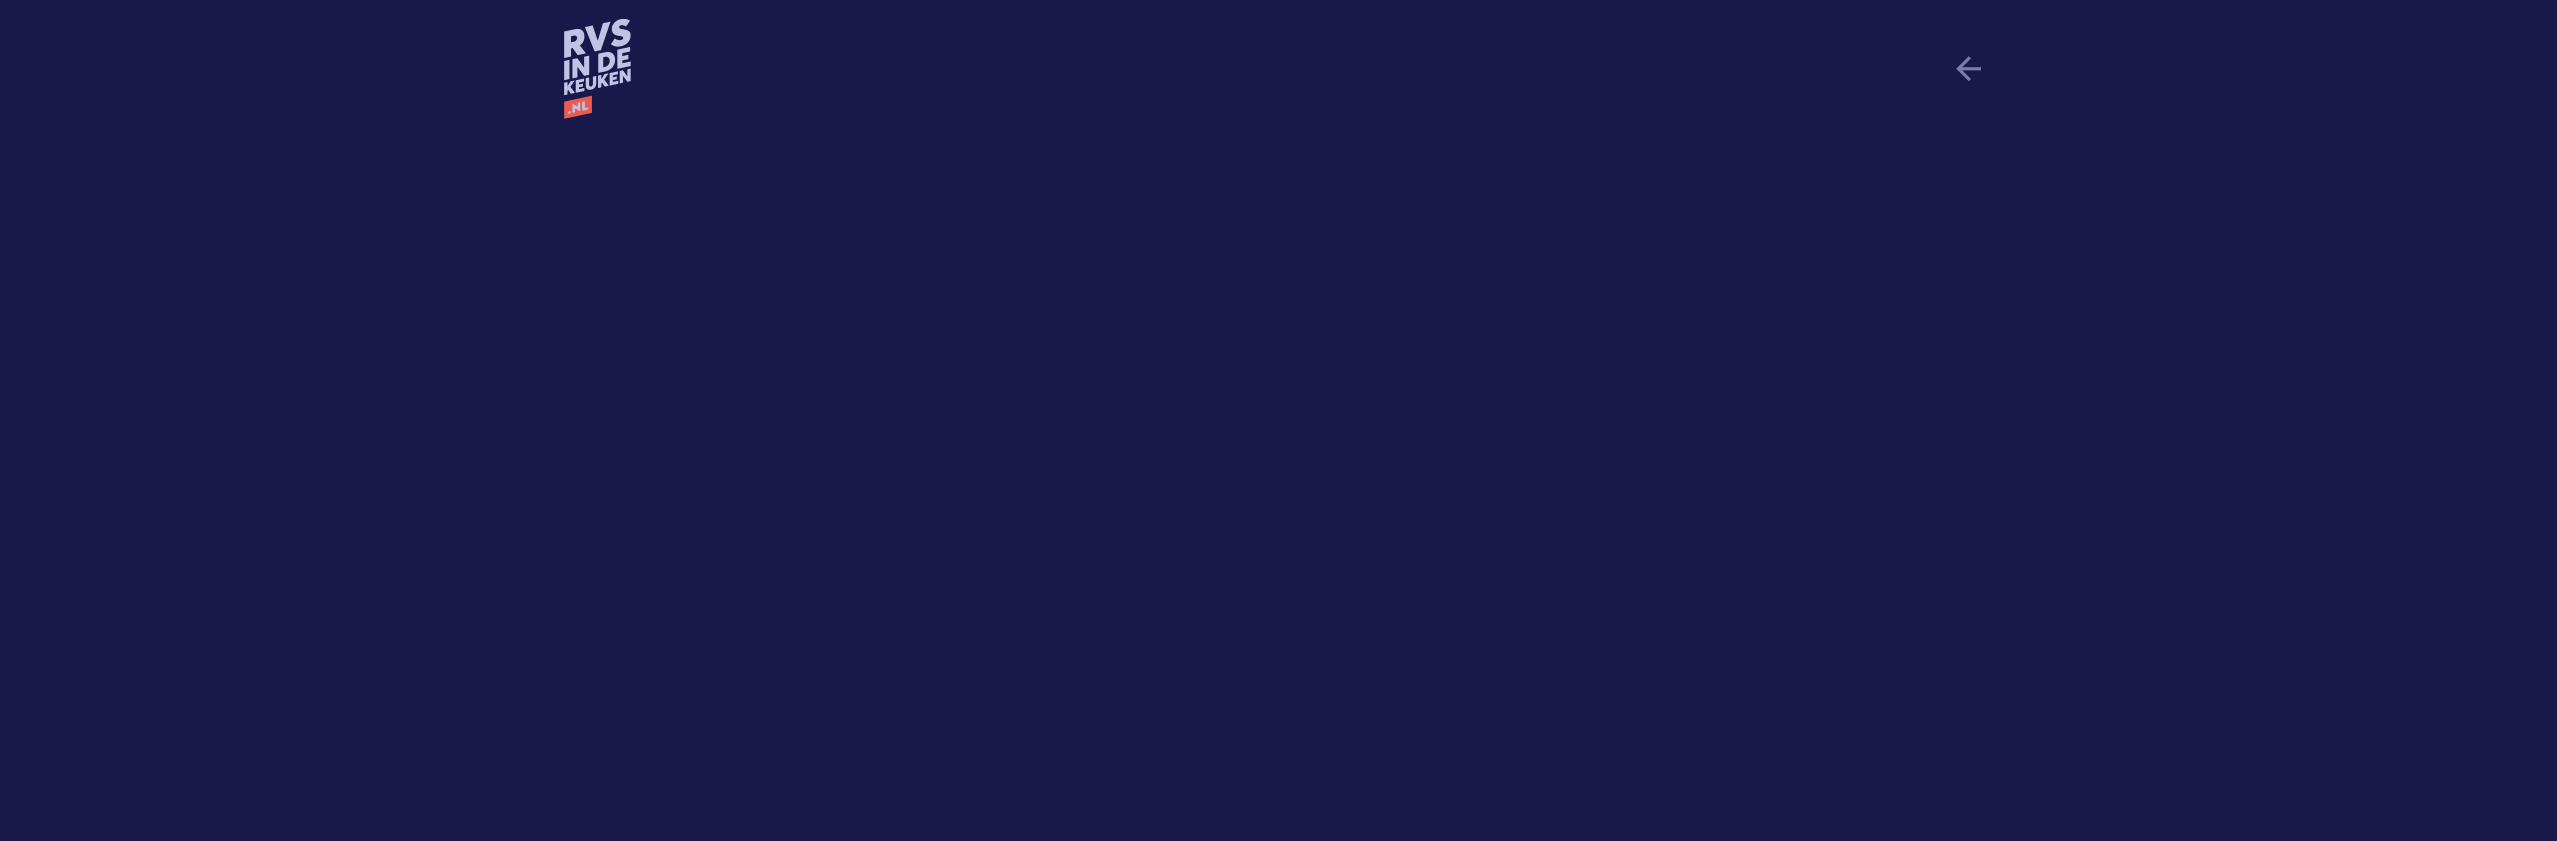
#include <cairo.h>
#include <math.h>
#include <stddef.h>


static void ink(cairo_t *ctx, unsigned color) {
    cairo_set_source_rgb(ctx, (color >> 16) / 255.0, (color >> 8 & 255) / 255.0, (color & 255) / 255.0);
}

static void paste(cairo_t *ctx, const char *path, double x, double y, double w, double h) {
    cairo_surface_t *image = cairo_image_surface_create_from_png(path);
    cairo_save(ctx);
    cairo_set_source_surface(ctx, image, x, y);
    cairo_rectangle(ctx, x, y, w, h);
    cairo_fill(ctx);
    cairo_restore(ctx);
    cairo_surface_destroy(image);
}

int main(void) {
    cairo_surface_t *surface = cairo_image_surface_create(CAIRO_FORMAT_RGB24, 2557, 841);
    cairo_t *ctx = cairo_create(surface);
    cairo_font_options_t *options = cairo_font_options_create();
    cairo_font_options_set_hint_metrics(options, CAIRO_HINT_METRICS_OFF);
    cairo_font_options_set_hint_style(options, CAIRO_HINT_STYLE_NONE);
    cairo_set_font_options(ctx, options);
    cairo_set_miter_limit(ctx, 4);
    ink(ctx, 0x18184A);
    cairo_paint(ctx);
    paste(ctx, "media/1.png", 564, 19, 67, 100);
    paste(ctx, "media/2.png", 1956, 56, 25, 25);
    cairo_surface_write_to_png(surface, "image.png");
    cairo_font_options_destroy(options);
    cairo_destroy(ctx);
    cairo_surface_destroy(surface);
    return 0;
}
